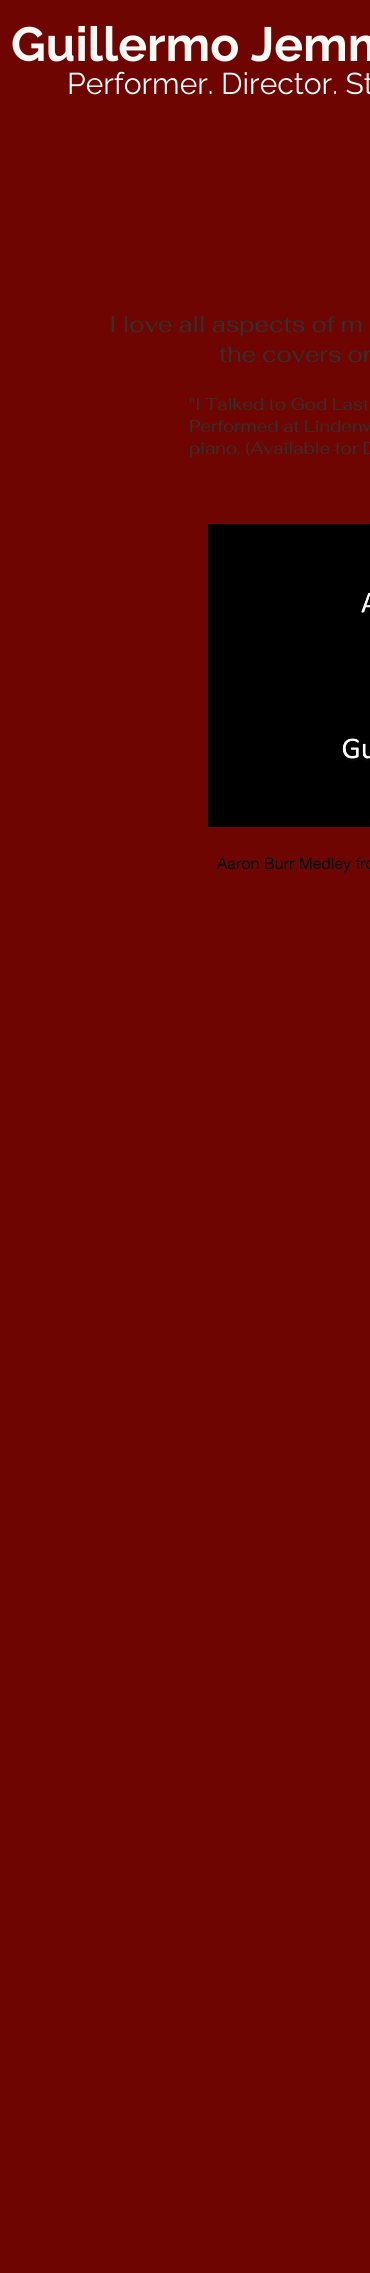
#include <cairo.h>
#include <math.h>
#include <stddef.h>

typedef struct { double x, y; const char *s; } line_t;

static void ink(cairo_t *ctx, unsigned color) {
    cairo_set_source_rgb(ctx, (color >> 16) / 255.0, (color >> 8 & 255) / 255.0, (color & 255) / 255.0);
}

static void paste(cairo_t *ctx, const char *path, double x, double y, double w, double h) {
    cairo_surface_t *image = cairo_image_surface_create_from_png(path);
    cairo_save(ctx);
    cairo_set_source_surface(ctx, image, x, y);
    cairo_rectangle(ctx, x, y, w, h);
    cairo_fill(ctx);
    cairo_restore(ctx);
    cairo_surface_destroy(image);
}

int main(void) {
    cairo_surface_t *surface = cairo_image_surface_create(CAIRO_FORMAT_RGB24, 370, 2273);
    cairo_t *ctx = cairo_create(surface);
    cairo_font_options_t *options = cairo_font_options_create();
    cairo_font_options_set_hint_metrics(options, CAIRO_HINT_METRICS_OFF);
    cairo_font_options_set_hint_style(options, CAIRO_HINT_STYLE_NONE);
    cairo_set_font_options(ctx, options);
    cairo_set_miter_limit(ctx, 4);
    ink(ctx, 0x6E0500);
    cairo_paint(ctx);
    cairo_select_font_face(ctx, "Raleway", CAIRO_FONT_SLANT_NORMAL, CAIRO_FONT_WEIGHT_BOLD);
    cairo_set_font_size(ctx, 48);
    ink(ctx, 0xF6F9F5);
    cairo_move_to(ctx, 11, 61);
    cairo_show_text(ctx, "Guillermo Jemm");
    cairo_select_font_face(ctx, "Raleway", CAIRO_FONT_SLANT_NORMAL, CAIRO_FONT_WEIGHT_NORMAL);
    cairo_set_font_size(ctx, 30);
    ink(ctx, 0xFFFFFF);
    cairo_move_to(ctx, 67, 94);
    cairo_show_text(ctx, "Performer. Director. St");
    cairo_select_font_face(ctx, "Fahkwang", CAIRO_FONT_SLANT_NORMAL, CAIRO_FONT_WEIGHT_NORMAL);
    cairo_set_font_size(ctx, 23);
    ink(ctx, 0x323232);
    cairo_move_to(ctx, 109, 332);
    cairo_show_text(ctx, "I love all aspects of m");
    cairo_move_to(ctx, 219, 362);
    cairo_show_text(ctx, "the covers or");
    cairo_set_font_size(ctx, 17);
    {
        static const line_t items[] = {
            {189, 410, "\"I Talked to God Last"},
            {189, 432, "Performed at Lindenw"},
            {189, 454, "piano. (Available for D"},
        };
        for (size_t i = 0; i < sizeof items / sizeof *items; i++) {
            cairo_move_to(ctx, items[i].x, items[i].y);
            cairo_show_text(ctx, items[i].s);
        }
    }
    paste(ctx, "media/1.png", 208, 524, 162, 303);
    cairo_select_font_face(ctx, "helvetica neue", CAIRO_FONT_SLANT_NORMAL, CAIRO_FONT_WEIGHT_NORMAL);
    cairo_set_font_size(ctx, 16);
    ink(ctx, 0x011014);
    cairo_move_to(ctx, 217, 869);
    cairo_show_text(ctx, "Aaron Burr Medley fro");
    cairo_surface_write_to_png(surface, "image.png");
    cairo_font_options_destroy(options);
    cairo_destroy(ctx);
    cairo_surface_destroy(surface);
    return 0;
}
